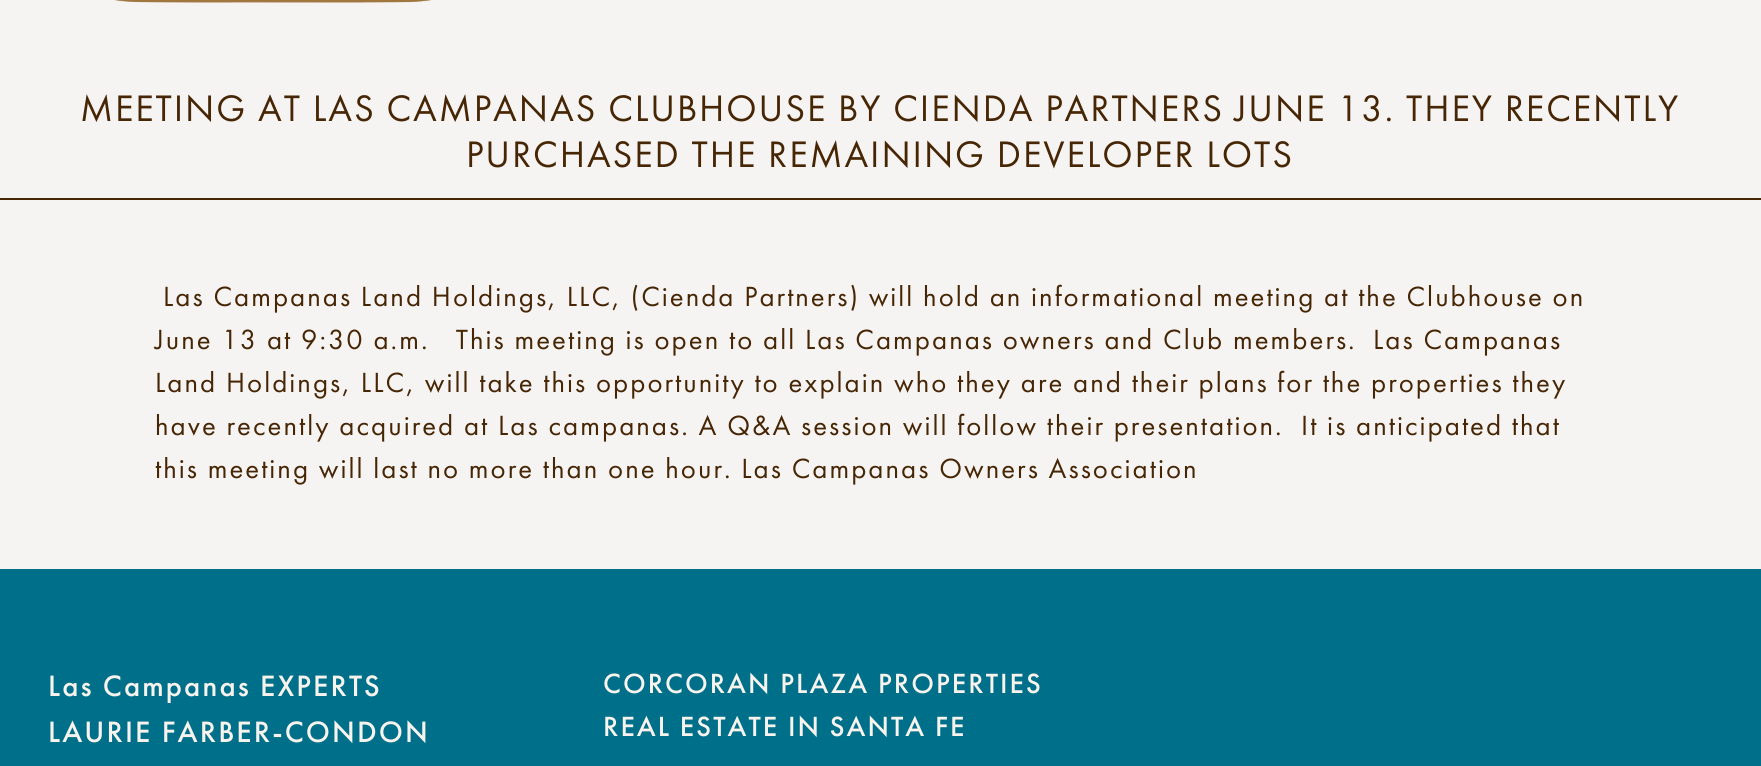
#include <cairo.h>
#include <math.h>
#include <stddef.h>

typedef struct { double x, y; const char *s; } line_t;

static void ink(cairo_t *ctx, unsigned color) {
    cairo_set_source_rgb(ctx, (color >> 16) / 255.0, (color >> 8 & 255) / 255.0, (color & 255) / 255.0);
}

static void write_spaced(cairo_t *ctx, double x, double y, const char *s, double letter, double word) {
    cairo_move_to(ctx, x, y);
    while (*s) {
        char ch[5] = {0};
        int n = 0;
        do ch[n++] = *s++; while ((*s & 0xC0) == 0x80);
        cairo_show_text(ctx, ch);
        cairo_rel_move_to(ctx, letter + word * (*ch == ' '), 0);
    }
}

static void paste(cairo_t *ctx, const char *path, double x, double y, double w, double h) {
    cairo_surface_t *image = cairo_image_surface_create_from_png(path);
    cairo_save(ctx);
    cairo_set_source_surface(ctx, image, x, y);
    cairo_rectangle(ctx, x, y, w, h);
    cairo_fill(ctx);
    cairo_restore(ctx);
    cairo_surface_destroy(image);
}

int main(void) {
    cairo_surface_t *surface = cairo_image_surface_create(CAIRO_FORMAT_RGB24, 1761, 766);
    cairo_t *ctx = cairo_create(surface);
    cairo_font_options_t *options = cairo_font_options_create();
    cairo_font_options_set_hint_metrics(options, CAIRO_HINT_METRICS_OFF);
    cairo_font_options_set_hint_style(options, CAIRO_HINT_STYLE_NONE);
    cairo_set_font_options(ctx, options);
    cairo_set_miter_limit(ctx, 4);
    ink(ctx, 0xF5F4F2);
    cairo_paint(ctx);
    paste(ctx, "media/1.png", 115, 0, 316, 3);
    ink(ctx, 0x472605);
    cairo_rectangle(ctx, 0, 198, 1761, 2);
    cairo_fill(ctx);
    cairo_select_font_face(ctx, "Futura PT", CAIRO_FONT_SLANT_NORMAL, CAIRO_FONT_WEIGHT_NORMAL);
    cairo_set_font_size(ctx, 38.25);
    write_spaced(ctx, 80, 121, "MEETING AT LAS CAMPANAS CLUBHOUSE BY CIENDA PARTNERS JUNE 13. THEY RECENTLY", 1.9, 0);
    write_spaced(ctx, 466, 167, "PURCHASED THE REMAINING DEVELOPER LOTS", 1.9, 0);
    cairo_set_font_size(ctx, 28.8);
    {
        static const line_t items[] = {
            {163, 306, "Las Campanas Land Holdings, LLC, (Cienda Partners) will hold an informational meeting at the Clubhouse on"},
            {155, 349, "June 13 at 9:30 a.m.   This meeting is open to all Las Campanas owners and Club members."},
            {1373, 349, "Las Campanas"},
            {155, 392, "Land Holdings, LLC, will take this opportunity to explain who they are and their plans for the properties they"},
            {155, 435, "have recently acquired at Las campanas. A Q&A session will follow their presentation.  It is anticipated that"},
            {155, 478, "this meeting will last no more than one hour. Las Campanas Owners Association"},
        };
        for (size_t i = 0; i < sizeof items / sizeof *items; i++) {
            write_spaced(ctx, items[i].x, items[i].y, items[i].s, 2.02, 0);
        }
    }
    ink(ctx, 0x00708A);
    cairo_rectangle(ctx, 0, 569, 1761, 197);
    cairo_fill(ctx);
    cairo_select_font_face(ctx, "Futura PT Medium", CAIRO_FONT_SLANT_NORMAL, CAIRO_FONT_WEIGHT_NORMAL);
    cairo_set_font_size(ctx, 30.6);
    ink(ctx, 0xF8F3ED);
    write_spaced(ctx, 48, 696, "Las Campanas EXPERTS", 2.1, 0);
    write_spaced(ctx, 48, 742, "LAURIE FARBER-CONDON", 2.1, 0);
    cairo_set_font_size(ctx, 28.8);
    write_spaced(ctx, 603, 693, "CORCORAN PLAZA PROPERTIES", 2.02, 0);
    write_spaced(ctx, 603, 736, "REAL ESTATE IN SANTA FE", 2.02, 0);
    cairo_surface_write_to_png(surface, "image.png");
    cairo_font_options_destroy(options);
    cairo_destroy(ctx);
    cairo_surface_destroy(surface);
    return 0;
}
